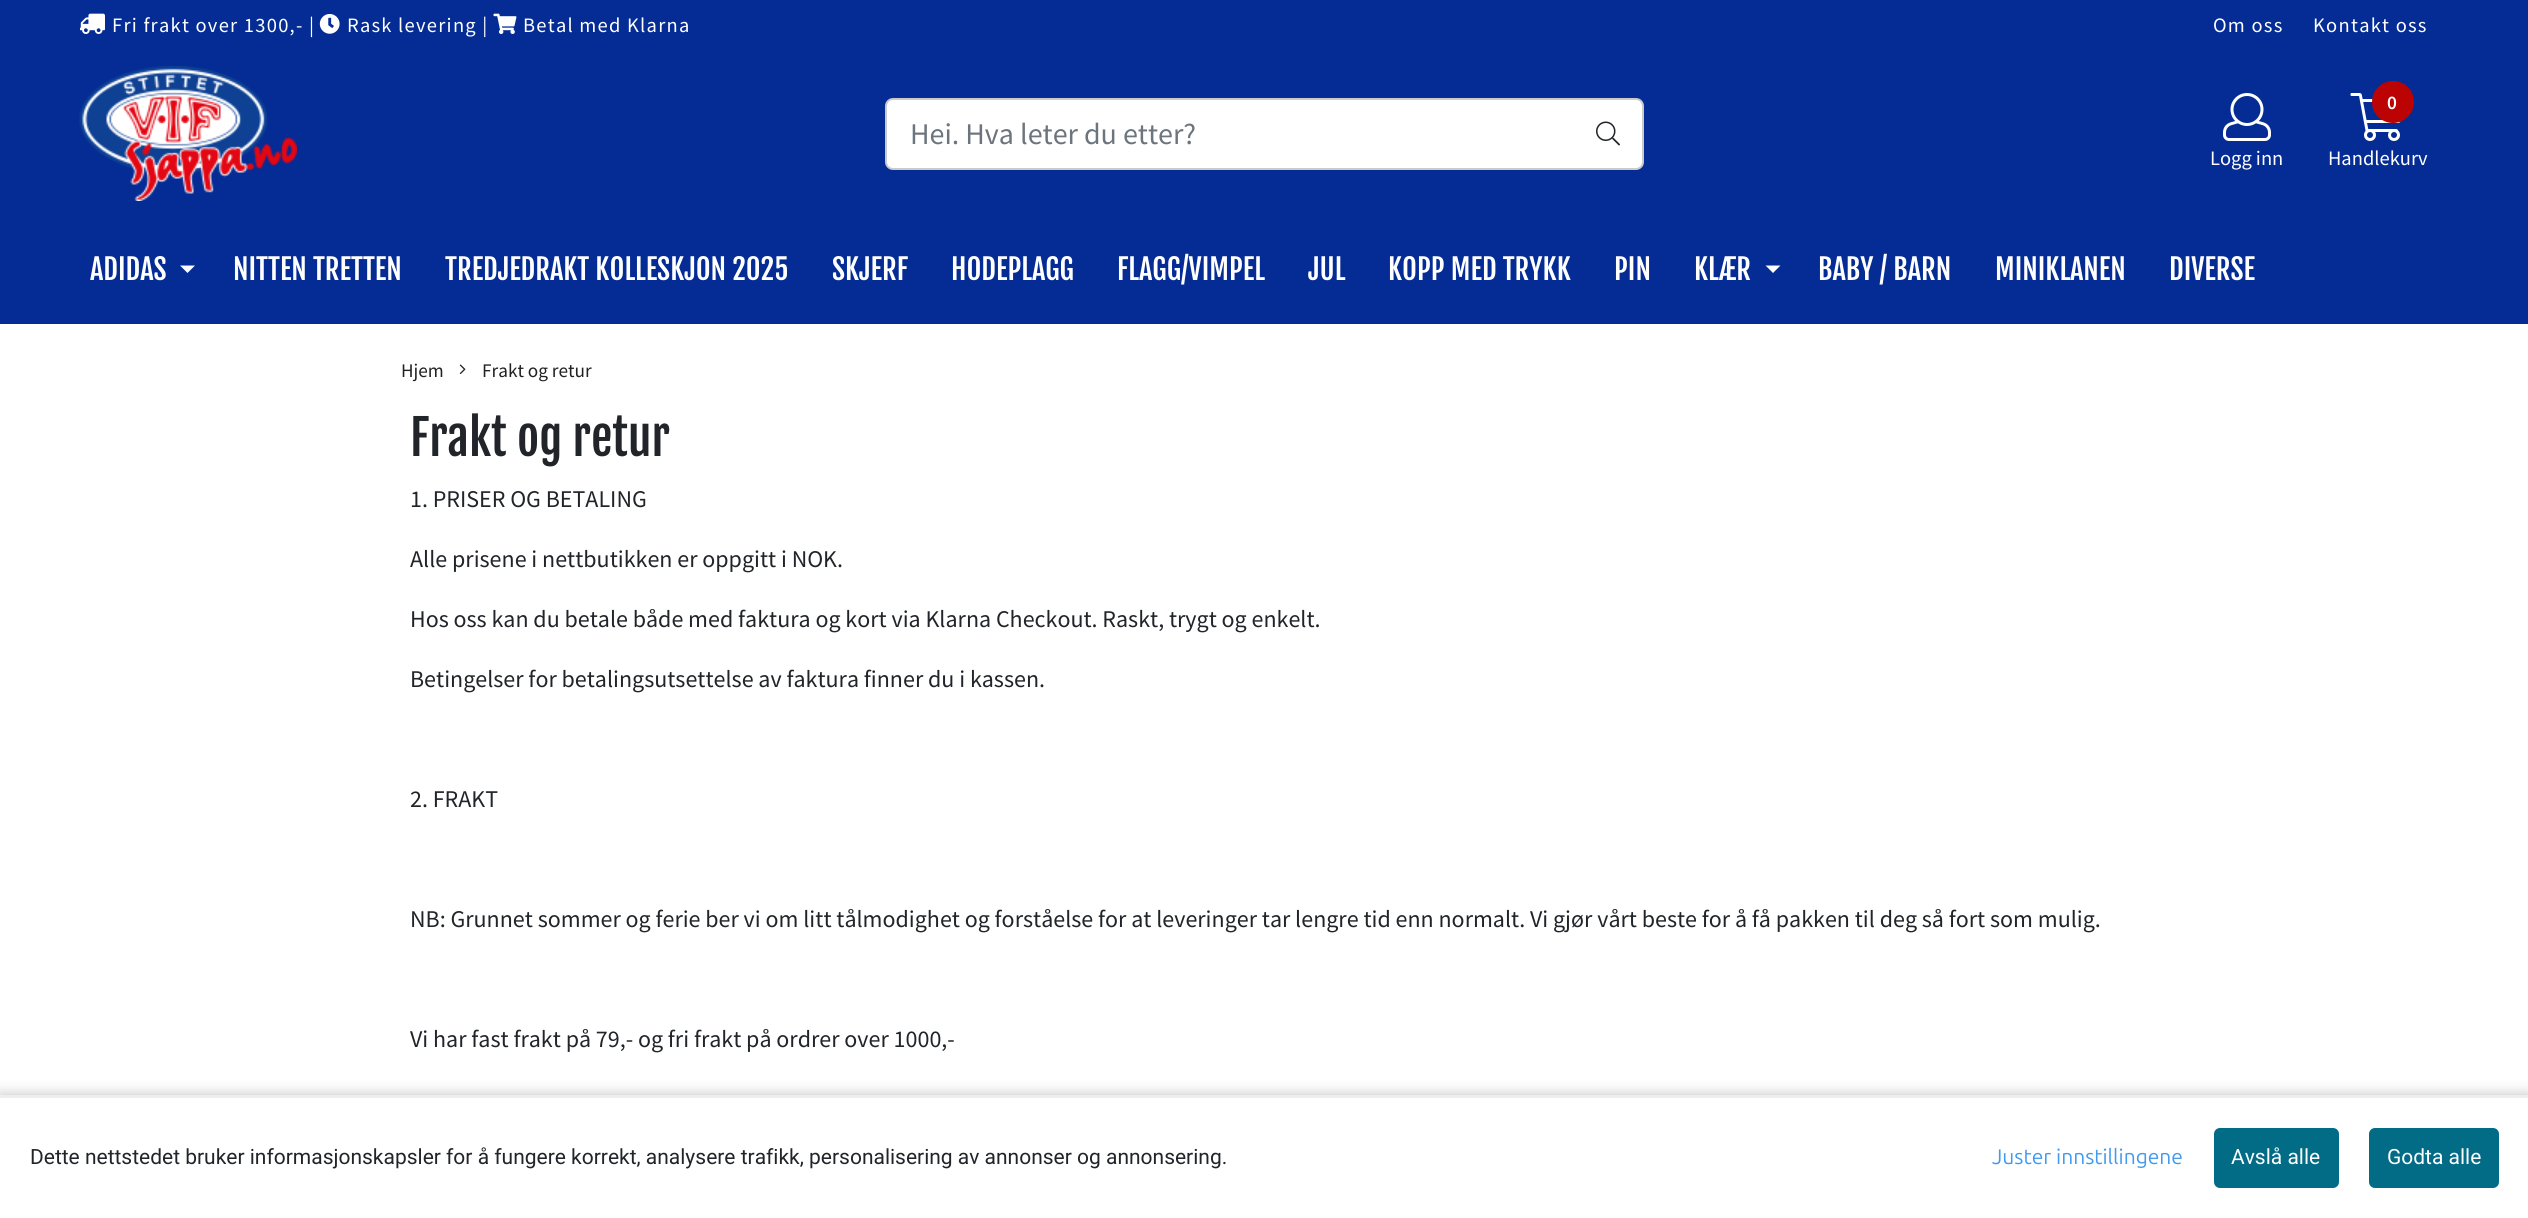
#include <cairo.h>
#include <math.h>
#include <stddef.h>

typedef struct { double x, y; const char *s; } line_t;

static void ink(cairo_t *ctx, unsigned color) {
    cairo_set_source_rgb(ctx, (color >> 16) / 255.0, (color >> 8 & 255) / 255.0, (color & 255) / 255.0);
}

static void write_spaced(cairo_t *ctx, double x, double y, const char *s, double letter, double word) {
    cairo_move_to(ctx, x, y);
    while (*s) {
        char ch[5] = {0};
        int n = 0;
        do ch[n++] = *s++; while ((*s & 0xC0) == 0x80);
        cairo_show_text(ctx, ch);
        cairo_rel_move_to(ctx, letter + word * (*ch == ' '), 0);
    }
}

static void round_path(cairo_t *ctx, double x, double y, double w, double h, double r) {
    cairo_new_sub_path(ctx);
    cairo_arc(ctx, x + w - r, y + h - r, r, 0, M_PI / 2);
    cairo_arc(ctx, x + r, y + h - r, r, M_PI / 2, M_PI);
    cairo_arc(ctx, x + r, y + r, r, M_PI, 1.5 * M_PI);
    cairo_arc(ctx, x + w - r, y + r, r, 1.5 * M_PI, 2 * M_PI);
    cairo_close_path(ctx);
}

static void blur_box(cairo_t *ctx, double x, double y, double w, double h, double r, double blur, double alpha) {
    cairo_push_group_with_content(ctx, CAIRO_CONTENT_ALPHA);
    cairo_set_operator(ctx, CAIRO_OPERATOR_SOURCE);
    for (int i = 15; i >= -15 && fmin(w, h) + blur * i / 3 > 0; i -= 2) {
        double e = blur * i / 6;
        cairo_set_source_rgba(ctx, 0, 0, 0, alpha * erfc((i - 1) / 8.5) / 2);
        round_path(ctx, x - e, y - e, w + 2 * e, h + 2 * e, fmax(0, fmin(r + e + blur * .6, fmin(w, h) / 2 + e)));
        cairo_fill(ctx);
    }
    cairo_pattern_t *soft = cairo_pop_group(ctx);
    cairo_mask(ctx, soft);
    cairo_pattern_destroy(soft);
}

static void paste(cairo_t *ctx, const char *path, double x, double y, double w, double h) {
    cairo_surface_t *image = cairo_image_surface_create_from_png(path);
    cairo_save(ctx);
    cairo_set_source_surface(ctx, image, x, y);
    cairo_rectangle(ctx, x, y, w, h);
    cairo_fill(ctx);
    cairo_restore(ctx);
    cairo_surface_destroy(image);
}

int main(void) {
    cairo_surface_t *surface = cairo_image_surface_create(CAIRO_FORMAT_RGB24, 2528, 1218);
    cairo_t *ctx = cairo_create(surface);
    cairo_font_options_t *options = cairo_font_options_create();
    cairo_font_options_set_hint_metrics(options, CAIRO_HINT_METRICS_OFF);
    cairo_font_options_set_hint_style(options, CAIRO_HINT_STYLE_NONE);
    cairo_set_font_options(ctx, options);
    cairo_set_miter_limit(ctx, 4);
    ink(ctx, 0xFFFFFF);
    cairo_paint(ctx);
    ink(ctx, 0x042C94);
    cairo_rectangle(ctx, 0, 0, 2528, 324);
    cairo_fill(ctx);
    paste(ctx, "media/1.png", 80, 13, 25, 21);
    cairo_select_font_face(ctx, "Source Sans Pro", CAIRO_FONT_SLANT_NORMAL, CAIRO_FONT_WEIGHT_NORMAL);
    cairo_set_font_size(ctx, 20.5);
    ink(ctx, 0xFFFFFF);
    write_spaced(ctx, 112, 32, "Fri frakt over 1300,- |", 1.25, 0);
    paste(ctx, "media/2.png", 319, 14, 21, 20);
    write_spaced(ctx, 347, 32, "Rask levering |", 1.25, 0);
    paste(ctx, "media/3.png", 493, 13, 24, 21);
    {
        static const line_t items[] = {
            {523, 32, "Betal med Klarna"},
            {2213, 32, "Om oss"},
            {2313, 32, "Kontakt oss"},
        };
        for (size_t i = 0; i < sizeof items / sizeof *items; i++) {
            write_spaced(ctx, items[i].x, items[i].y, items[i].s, 1.25, 0);
        }
    }
    paste(ctx, "media/4.png", 79, 66, 218, 135);
    round_path(ctx, 886, 99, 757, 70, 7);
    cairo_fill_preserve(ctx);
    ink(ctx, 0xCACACA);
    cairo_stroke(ctx);
    cairo_set_font_size(ctx, 30);
    ink(ctx, 0x6C757D);
    cairo_move_to(ctx, 910, 144);
    cairo_show_text(ctx, "Hei. Hva leter du etter?");
    paste(ctx, "media/5.png", 1596, 121, 24, 25);
    paste(ctx, "media/6.png", 2223, 93, 48, 48);
    cairo_set_font_size(ctx, 20.5);
    ink(ctx, 0xFFFFFF);
    cairo_move_to(ctx, 2210, 165);
    cairo_show_text(ctx, "Logg inn");
    paste(ctx, "media/7.png", 2350, 93, 51, 48);
    ink(ctx, 0xBA0302);
    cairo_arc(ctx, 2393, 102, 19.5, 0, 2 * M_PI);
    cairo_fill_preserve(ctx);
    cairo_set_line_width(ctx, 3);
    cairo_stroke(ctx);
    cairo_select_font_face(ctx, "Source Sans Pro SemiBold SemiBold", CAIRO_FONT_SLANT_NORMAL, CAIRO_FONT_WEIGHT_NORMAL);
    cairo_set_font_size(ctx, 19.25);
    ink(ctx, 0xFFFFFF);
    cairo_move_to(ctx, 2387, 109);
    cairo_show_text(ctx, "0");
    cairo_select_font_face(ctx, "Source Sans Pro", CAIRO_FONT_SLANT_NORMAL, CAIRO_FONT_WEIGHT_NORMAL);
    cairo_set_font_size(ctx, 20.5);
    cairo_move_to(ctx, 2328, 165);
    cairo_show_text(ctx, "Handlekurv");
    cairo_select_font_face(ctx, "Fjalla One", CAIRO_FONT_SLANT_NORMAL, CAIRO_FONT_WEIGHT_NORMAL);
    cairo_set_font_size(ctx, 28.5);
    cairo_move_to(ctx, 90, 280);
    cairo_show_text(ctx, "ADIDAS");
    cairo_new_path(ctx);
    cairo_move_to(ctx, 180, 265.5);
    cairo_line_to(ctx, 195, 265.5);
    cairo_line_to(ctx, 187.5, 273);
    cairo_close_path(ctx);
    cairo_fill(ctx);
    {
        static const line_t items[] = {
            {233, 280, "NITTEN TRETTEN"},
            {445, 280, "TREDJEDRAKT KOLLESKJON 2025"},
            {832, 280, "SKJERF"},
            {951, 280, "HODEPLAGG"},
            {1117, 280, "FLAGG/VIMPEL"},
            {1308, 280, "JUL"},
            {1388, 280, "KOPP MED TRYKK"},
            {1614, 280, "PIN"},
            {1694, 280, "KLÆR"},
        };
        for (size_t i = 0; i < sizeof items / sizeof *items; i++) {
            cairo_move_to(ctx, items[i].x, items[i].y);
            cairo_show_text(ctx, items[i].s);
        }
    }
    cairo_new_path(ctx);
    cairo_move_to(ctx, 1765.5, 265.5);
    cairo_line_to(ctx, 1780.5, 265.5);
    cairo_line_to(ctx, 1773, 273);
    cairo_close_path(ctx);
    cairo_fill(ctx);
    {
        static const line_t items[] = {
            {1818, 280, "BABY / BARN"},
            {1995, 280, "MINIKLANEN"},
            {2169, 280, "DIVERSE"},
        };
        for (size_t i = 0; i < sizeof items / sizeof *items; i++) {
            cairo_move_to(ctx, items[i].x, items[i].y);
            cairo_show_text(ctx, items[i].s);
        }
    }
    cairo_select_font_face(ctx, "Source Sans Pro", CAIRO_FONT_SLANT_NORMAL, CAIRO_FONT_WEIGHT_NORMAL);
    cairo_set_font_size(ctx, 19.25);
    ink(ctx, 0x202121);
    cairo_move_to(ctx, 401, 377);
    cairo_show_text(ctx, "Hjem");
    paste(ctx, "media/8.png", 459, 364, 7, 10);
    cairo_move_to(ctx, 482, 377);
    cairo_show_text(ctx, "Frakt og retur");
    cairo_select_font_face(ctx, "Fjalla One", CAIRO_FONT_SLANT_NORMAL, CAIRO_FONT_WEIGHT_NORMAL);
    cairo_set_font_size(ctx, 48);
    ink(ctx, 0x212529);
    cairo_move_to(ctx, 410, 456);
    cairo_show_text(ctx, "Frakt og retur");
    cairo_select_font_face(ctx, "Source Sans Pro", CAIRO_FONT_SLANT_NORMAL, CAIRO_FONT_WEIGHT_NORMAL);
    cairo_set_font_size(ctx, 24);
    {
        static const line_t items[] = {
            {410, 507, "1. PRISER OG BETALING"},
            {410, 567, "Alle prisene i nettbutikken er oppgitt i NOK."},
            {410, 627, "Hos oss kan du betale både med faktura og kort via Klarna Checkout. Raskt, trygt og enkelt."},
            {410, 687, "Betingelser for betalingsutsettelse av faktura finner du i kassen."},
            {410, 807, "2. FRAKT"},
            {410, 927, "NB: Grunnet sommer og ferie ber vi om litt tålmodighet og forståelse for at leveringer tar lengre tid enn normalt. Vi gjør vårt beste for å få pakken til deg så fort som mulig."},
            {410, 1047, "Vi har fast frakt på 79,- og fri frakt på ordrer over 1000,-"},
        };
        for (size_t i = 0; i < sizeof items / sizeof *items; i++) {
            cairo_move_to(ctx, items[i].x, items[i].y);
            cairo_show_text(ctx, items[i].s);
        }
    }
    ink(ctx, 0x000000);
    blur_box(ctx, 0, 1095, 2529, 123, 0, 7.5, 0.25);
    ink(ctx, 0xFFFFFF);
    cairo_rectangle(ctx, 0, 1098, 2528, 120);
    cairo_fill(ctx);
    ink(ctx, 0xEEEEEE);
    cairo_rectangle(ctx, 0, 1095, 2528, 3);
    cairo_fill(ctx);
    cairo_select_font_face(ctx, "Roboto", CAIRO_FONT_SLANT_NORMAL, CAIRO_FONT_WEIGHT_NORMAL);
    cairo_set_font_size(ctx, 21);
    ink(ctx, 0x212529);
    cairo_move_to(ctx, 30, 1164);
    cairo_show_text(ctx, "Dette nettstedet bruker informasjonskapsler for å fungere korrekt, analysere trafikk, personalisering av annonser og annonsering.");
    cairo_select_font_face(ctx, "Ubuntu", CAIRO_FONT_SLANT_NORMAL, CAIRO_FONT_WEIGHT_NORMAL);
    ink(ctx, 0x409AEF);
    cairo_move_to(ctx, 1992, 1164);
    cairo_show_text(ctx, "Juster innstillingene");
    ink(ctx, 0x026B85);
    round_path(ctx, 2214, 1128, 125, 60, 6);
    cairo_fill(ctx);
    cairo_select_font_face(ctx, "Roboto", CAIRO_FONT_SLANT_NORMAL, CAIRO_FONT_WEIGHT_NORMAL);
    ink(ctx, 0xFFFFFF);
    cairo_move_to(ctx, 2231, 1164);
    cairo_show_text(ctx, "Avslå alle");
    ink(ctx, 0x026B85);
    round_path(ctx, 2369, 1128, 130, 60, 6);
    cairo_fill(ctx);
    ink(ctx, 0xFFFFFF);
    cairo_move_to(ctx, 2387, 1164);
    cairo_show_text(ctx, "Godta alle");
    cairo_surface_write_to_png(surface, "image.png");
    cairo_font_options_destroy(options);
    cairo_destroy(ctx);
    cairo_surface_destroy(surface);
    return 0;
}
